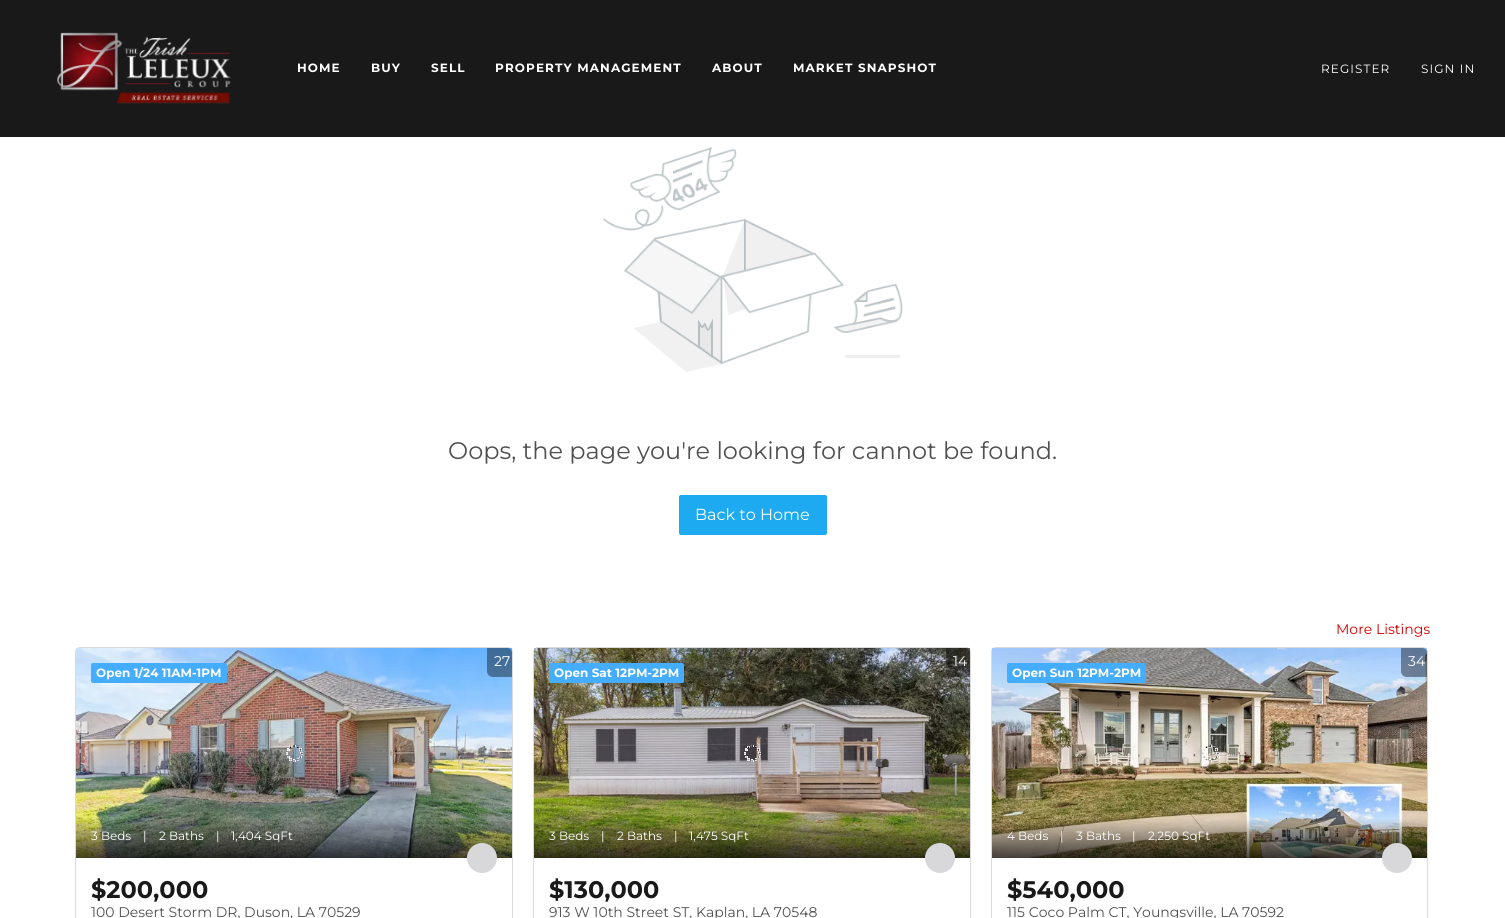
#include <cairo.h>
#include <math.h>
#include <stddef.h>

typedef struct { double x, y; const char *s; } line_t;

static void ink(cairo_t *ctx, unsigned color) {
    cairo_set_source_rgb(ctx, (color >> 16) / 255.0, (color >> 8 & 255) / 255.0, (color & 255) / 255.0);
}

static void write_spaced(cairo_t *ctx, double x, double y, const char *s, double letter, double word) {
    cairo_move_to(ctx, x, y);
    while (*s) {
        char ch[5] = {0};
        int n = 0;
        do ch[n++] = *s++; while ((*s & 0xC0) == 0x80);
        cairo_show_text(ctx, ch);
        cairo_rel_move_to(ctx, letter + word * (*ch == ' '), 0);
    }
}

static void round_path(cairo_t *ctx, double x, double y, double w, double h, double r) {
    cairo_new_sub_path(ctx);
    cairo_arc(ctx, x + w - r, y + h - r, r, 0, M_PI / 2);
    cairo_arc(ctx, x + r, y + h - r, r, M_PI / 2, M_PI);
    cairo_arc(ctx, x + r, y + r, r, M_PI, 1.5 * M_PI);
    cairo_arc(ctx, x + w - r, y + r, r, 1.5 * M_PI, 2 * M_PI);
    cairo_close_path(ctx);
}

static void paste(cairo_t *ctx, const char *path, double x, double y, double w, double h) {
    cairo_surface_t *image = cairo_image_surface_create_from_png(path);
    cairo_save(ctx);
    cairo_set_source_surface(ctx, image, x, y);
    cairo_rectangle(ctx, x, y, w, h);
    cairo_fill(ctx);
    cairo_restore(ctx);
    cairo_surface_destroy(image);
}

int main(void) {
    cairo_surface_t *surface = cairo_image_surface_create(CAIRO_FORMAT_RGB24, 1505, 918);
    cairo_t *ctx = cairo_create(surface);
    cairo_font_options_t *options = cairo_font_options_create();
    cairo_font_options_set_hint_metrics(options, CAIRO_HINT_METRICS_OFF);
    cairo_font_options_set_hint_style(options, CAIRO_HINT_STYLE_NONE);
    cairo_set_font_options(ctx, options);
    cairo_set_miter_limit(ctx, 4);
    ink(ctx, 0xFFFFFF);
    cairo_paint(ctx);
    ink(ctx, 0x191919);
    cairo_rectangle(ctx, 0, 0, 1505, 137);
    cairo_fill(ctx);
    paste(ctx, "media/1.png", 57, 32, 174, 72);
    cairo_select_font_face(ctx, "Montserrat", CAIRO_FONT_SLANT_NORMAL, CAIRO_FONT_WEIGHT_BOLD);
    cairo_set_font_size(ctx, 12);
    ink(ctx, 0xFFFFFF);
    {
        static const line_t items[] = {
            {297, 72, "HOME"},
            {371, 72, "BUY"},
            {431, 72, "SELL"},
            {495, 72, "PROPERTY MANAGEMENT"},
            {712, 72, "ABOUT"},
            {793, 72, "MARKET SNAPSHOT"},
        };
        for (size_t i = 0; i < sizeof items / sizeof *items; i++) {
            write_spaced(ctx, items[i].x, items[i].y, items[i].s, 1.1, 0);
        }
    }
    cairo_select_font_face(ctx, "Montserrat", CAIRO_FONT_SLANT_NORMAL, CAIRO_FONT_WEIGHT_NORMAL);
    write_spaced(ctx, 1321, 73, "REGISTER", 1.1, 0);
    write_spaced(ctx, 1421, 73, "SIGN IN", 1.1, 0);
    paste(ctx, "media/2.png", 603, 147, 300, 225);
    cairo_set_font_size(ctx, 24);
    ink(ctx, 0x505050);
    cairo_move_to(ctx, 448, 459);
    cairo_show_text(ctx, "Oops, the page you're looking for cannot be found.");
    ink(ctx, 0x1DAAF0);
    round_path(ctx, 679, 495, 148, 40, 2);
    cairo_fill(ctx);
    cairo_set_font_size(ctx, 16);
    ink(ctx, 0xFFFFFF);
    cairo_move_to(ctx, 695, 520);
    cairo_show_text(ctx, "Back to Home");
    cairo_set_font_size(ctx, 14);
    ink(ctx, 0xD50000);
    cairo_move_to(ctx, 1336, 634);
    cairo_show_text(ctx, "More Listings");
    round_path(ctx, 75.5, 647.5, 437, 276, 4.5);
    ink(ctx, 0xDADADA);
    cairo_set_line_width(ctx, 1);
    cairo_stroke(ctx);
    paste(ctx, "media/3.png", 76, 648, 436, 210);
    paste(ctx, "media/4.png", 286, 745, 17, 17);
    cairo_set_source_rgba(ctx, 0, 0, 0, 0.4);
    cairo_new_path(ctx);
    cairo_move_to(ctx, 487, 648);
    cairo_line_to(ctx, 507, 648);
    cairo_curve_to(ctx, 510, 648, 512, 650, 512, 653);
    cairo_line_to(ctx, 512, 677);
    cairo_line_to(ctx, 493, 677);
    cairo_curve_to(ctx, 489.5, 677, 487, 674.5, 487, 671);
    cairo_close_path(ctx);
    cairo_fill(ctx);
    ink(ctx, 0xFFFFFF);
    cairo_move_to(ctx, 494, 666);
    cairo_show_text(ctx, "27");
    cairo_set_font_size(ctx, 12);
    {
        static const line_t items[] = {
            {91, 840, "3 Beds"},
            {143, 840, "|"},
            {159, 840, "2 Baths"},
            {216, 840, "|"},
            {231, 840, "1,404 SqFt"},
        };
        for (size_t i = 0; i < sizeof items / sizeof *items; i++) {
            cairo_move_to(ctx, items[i].x, items[i].y);
            cairo_show_text(ctx, items[i].s);
        }
    }
    ink(ctx, 0x45ADFF);
    round_path(ctx, 91, 663, 136, 20, 2);
    cairo_fill(ctx);
    cairo_select_font_face(ctx, "Montserrat", CAIRO_FONT_SLANT_NORMAL, CAIRO_FONT_WEIGHT_BOLD);
    ink(ctx, 0xFFFFFF);
    cairo_move_to(ctx, 96, 677);
    cairo_show_text(ctx, "Open 1/24 11AM-1PM");
    ink(ctx, 0xD8D8DB);
    cairo_new_path(ctx);
    cairo_arc(ctx, 482, 858, 15, 0, 2 * M_PI);
    cairo_fill(ctx);
    cairo_set_font_size(ctx, 24);
    ink(ctx, 0x191919);
    cairo_move_to(ctx, 91, 898);
    cairo_show_text(ctx, "$200,000");
    cairo_select_font_face(ctx, "Montserrat", CAIRO_FONT_SLANT_NORMAL, CAIRO_FONT_WEIGHT_NORMAL);
    cairo_set_font_size(ctx, 14);
    ink(ctx, 0x505050);
    cairo_move_to(ctx, 91, 917);
    cairo_show_text(ctx, "100 Desert Storm DR, Duson, LA 70529");
    round_path(ctx, 533.5, 647.5, 437, 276, 4.5);
    ink(ctx, 0xDADADA);
    cairo_stroke(ctx);
    paste(ctx, "media/5.png", 534, 648, 436, 210);
    paste(ctx, "media/6.png", 744, 745, 17, 17);
    cairo_set_source_rgba(ctx, 0, 0, 0, 0.4);
    cairo_new_path(ctx);
    cairo_move_to(ctx, 946, 648);
    cairo_line_to(ctx, 965, 648);
    cairo_curve_to(ctx, 968, 648, 970, 650, 970, 653);
    cairo_line_to(ctx, 970, 677);
    cairo_line_to(ctx, 952, 677);
    cairo_curve_to(ctx, 948.5, 677, 946, 674.5, 946, 671);
    cairo_close_path(ctx);
    cairo_fill(ctx);
    ink(ctx, 0xFFFFFF);
    cairo_move_to(ctx, 953, 666);
    cairo_show_text(ctx, "14");
    cairo_set_font_size(ctx, 12);
    {
        static const line_t items[] = {
            {549, 840, "3 Beds"},
            {601, 840, "|"},
            {617, 840, "2 Baths"},
            {674, 840, "|"},
            {689, 840, "1,475 SqFt"},
        };
        for (size_t i = 0; i < sizeof items / sizeof *items; i++) {
            cairo_move_to(ctx, items[i].x, items[i].y);
            cairo_show_text(ctx, items[i].s);
        }
    }
    ink(ctx, 0x45ADFF);
    round_path(ctx, 549, 663, 135, 20, 2);
    cairo_fill(ctx);
    cairo_select_font_face(ctx, "Montserrat", CAIRO_FONT_SLANT_NORMAL, CAIRO_FONT_WEIGHT_BOLD);
    ink(ctx, 0xFFFFFF);
    cairo_move_to(ctx, 554, 677);
    cairo_show_text(ctx, "Open Sat 12PM-2PM");
    ink(ctx, 0xD8D8DB);
    cairo_new_path(ctx);
    cairo_arc(ctx, 940, 858, 15, 0, 2 * M_PI);
    cairo_fill(ctx);
    cairo_set_font_size(ctx, 24);
    ink(ctx, 0x191919);
    cairo_move_to(ctx, 549, 898);
    cairo_show_text(ctx, "$130,000");
    cairo_select_font_face(ctx, "Montserrat", CAIRO_FONT_SLANT_NORMAL, CAIRO_FONT_WEIGHT_NORMAL);
    cairo_set_font_size(ctx, 14);
    ink(ctx, 0x505050);
    cairo_move_to(ctx, 549, 917);
    cairo_show_text(ctx, "913 W 10th Street ST, Kaplan, LA 70548");
    round_path(ctx, 991.5, 647.5, 436, 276, 4.5);
    ink(ctx, 0xDADADA);
    cairo_stroke(ctx);
    paste(ctx, "media/7.png", 992, 648, 435, 210);
    paste(ctx, "media/8.png", 1202, 745, 17, 17);
    cairo_set_source_rgba(ctx, 0, 0, 0, 0.4);
    cairo_new_path(ctx);
    cairo_move_to(ctx, 1401, 648);
    cairo_line_to(ctx, 1422, 648);
    cairo_curve_to(ctx, 1425, 648, 1427, 650, 1427, 653);
    cairo_line_to(ctx, 1427, 677);
    cairo_line_to(ctx, 1407, 677);
    cairo_curve_to(ctx, 1403.5, 677, 1401, 674.5, 1401, 671);
    cairo_close_path(ctx);
    cairo_fill(ctx);
    ink(ctx, 0xFFFFFF);
    cairo_move_to(ctx, 1408, 666);
    cairo_show_text(ctx, "34");
    cairo_set_font_size(ctx, 12);
    {
        static const line_t items[] = {
            {1007, 840, "4 Beds"},
            {1060, 840, "|"},
            {1076, 840, "3 Baths"},
            {1132, 840, "|"},
            {1148, 840, "2,250 SqFt"},
        };
        for (size_t i = 0; i < sizeof items / sizeof *items; i++) {
            cairo_move_to(ctx, items[i].x, items[i].y);
            cairo_show_text(ctx, items[i].s);
        }
    }
    ink(ctx, 0x45ADFF);
    round_path(ctx, 1007, 663, 139, 20, 2);
    cairo_fill(ctx);
    cairo_select_font_face(ctx, "Montserrat", CAIRO_FONT_SLANT_NORMAL, CAIRO_FONT_WEIGHT_BOLD);
    ink(ctx, 0xFFFFFF);
    cairo_move_to(ctx, 1012, 677);
    cairo_show_text(ctx, "Open Sun 12PM-2PM");
    ink(ctx, 0xD8D8DB);
    cairo_new_path(ctx);
    cairo_arc(ctx, 1397, 858, 15, 0, 2 * M_PI);
    cairo_fill(ctx);
    cairo_set_font_size(ctx, 24);
    ink(ctx, 0x191919);
    cairo_move_to(ctx, 1007, 898);
    cairo_show_text(ctx, "$540,000");
    cairo_select_font_face(ctx, "Montserrat", CAIRO_FONT_SLANT_NORMAL, CAIRO_FONT_WEIGHT_NORMAL);
    cairo_set_font_size(ctx, 14);
    ink(ctx, 0x505050);
    cairo_move_to(ctx, 1007, 917);
    cairo_show_text(ctx, "115 Coco Palm CT, Youngsville, LA 70592");
    cairo_surface_write_to_png(surface, "image.png");
    cairo_font_options_destroy(options);
    cairo_destroy(ctx);
    cairo_surface_destroy(surface);
    return 0;
}
